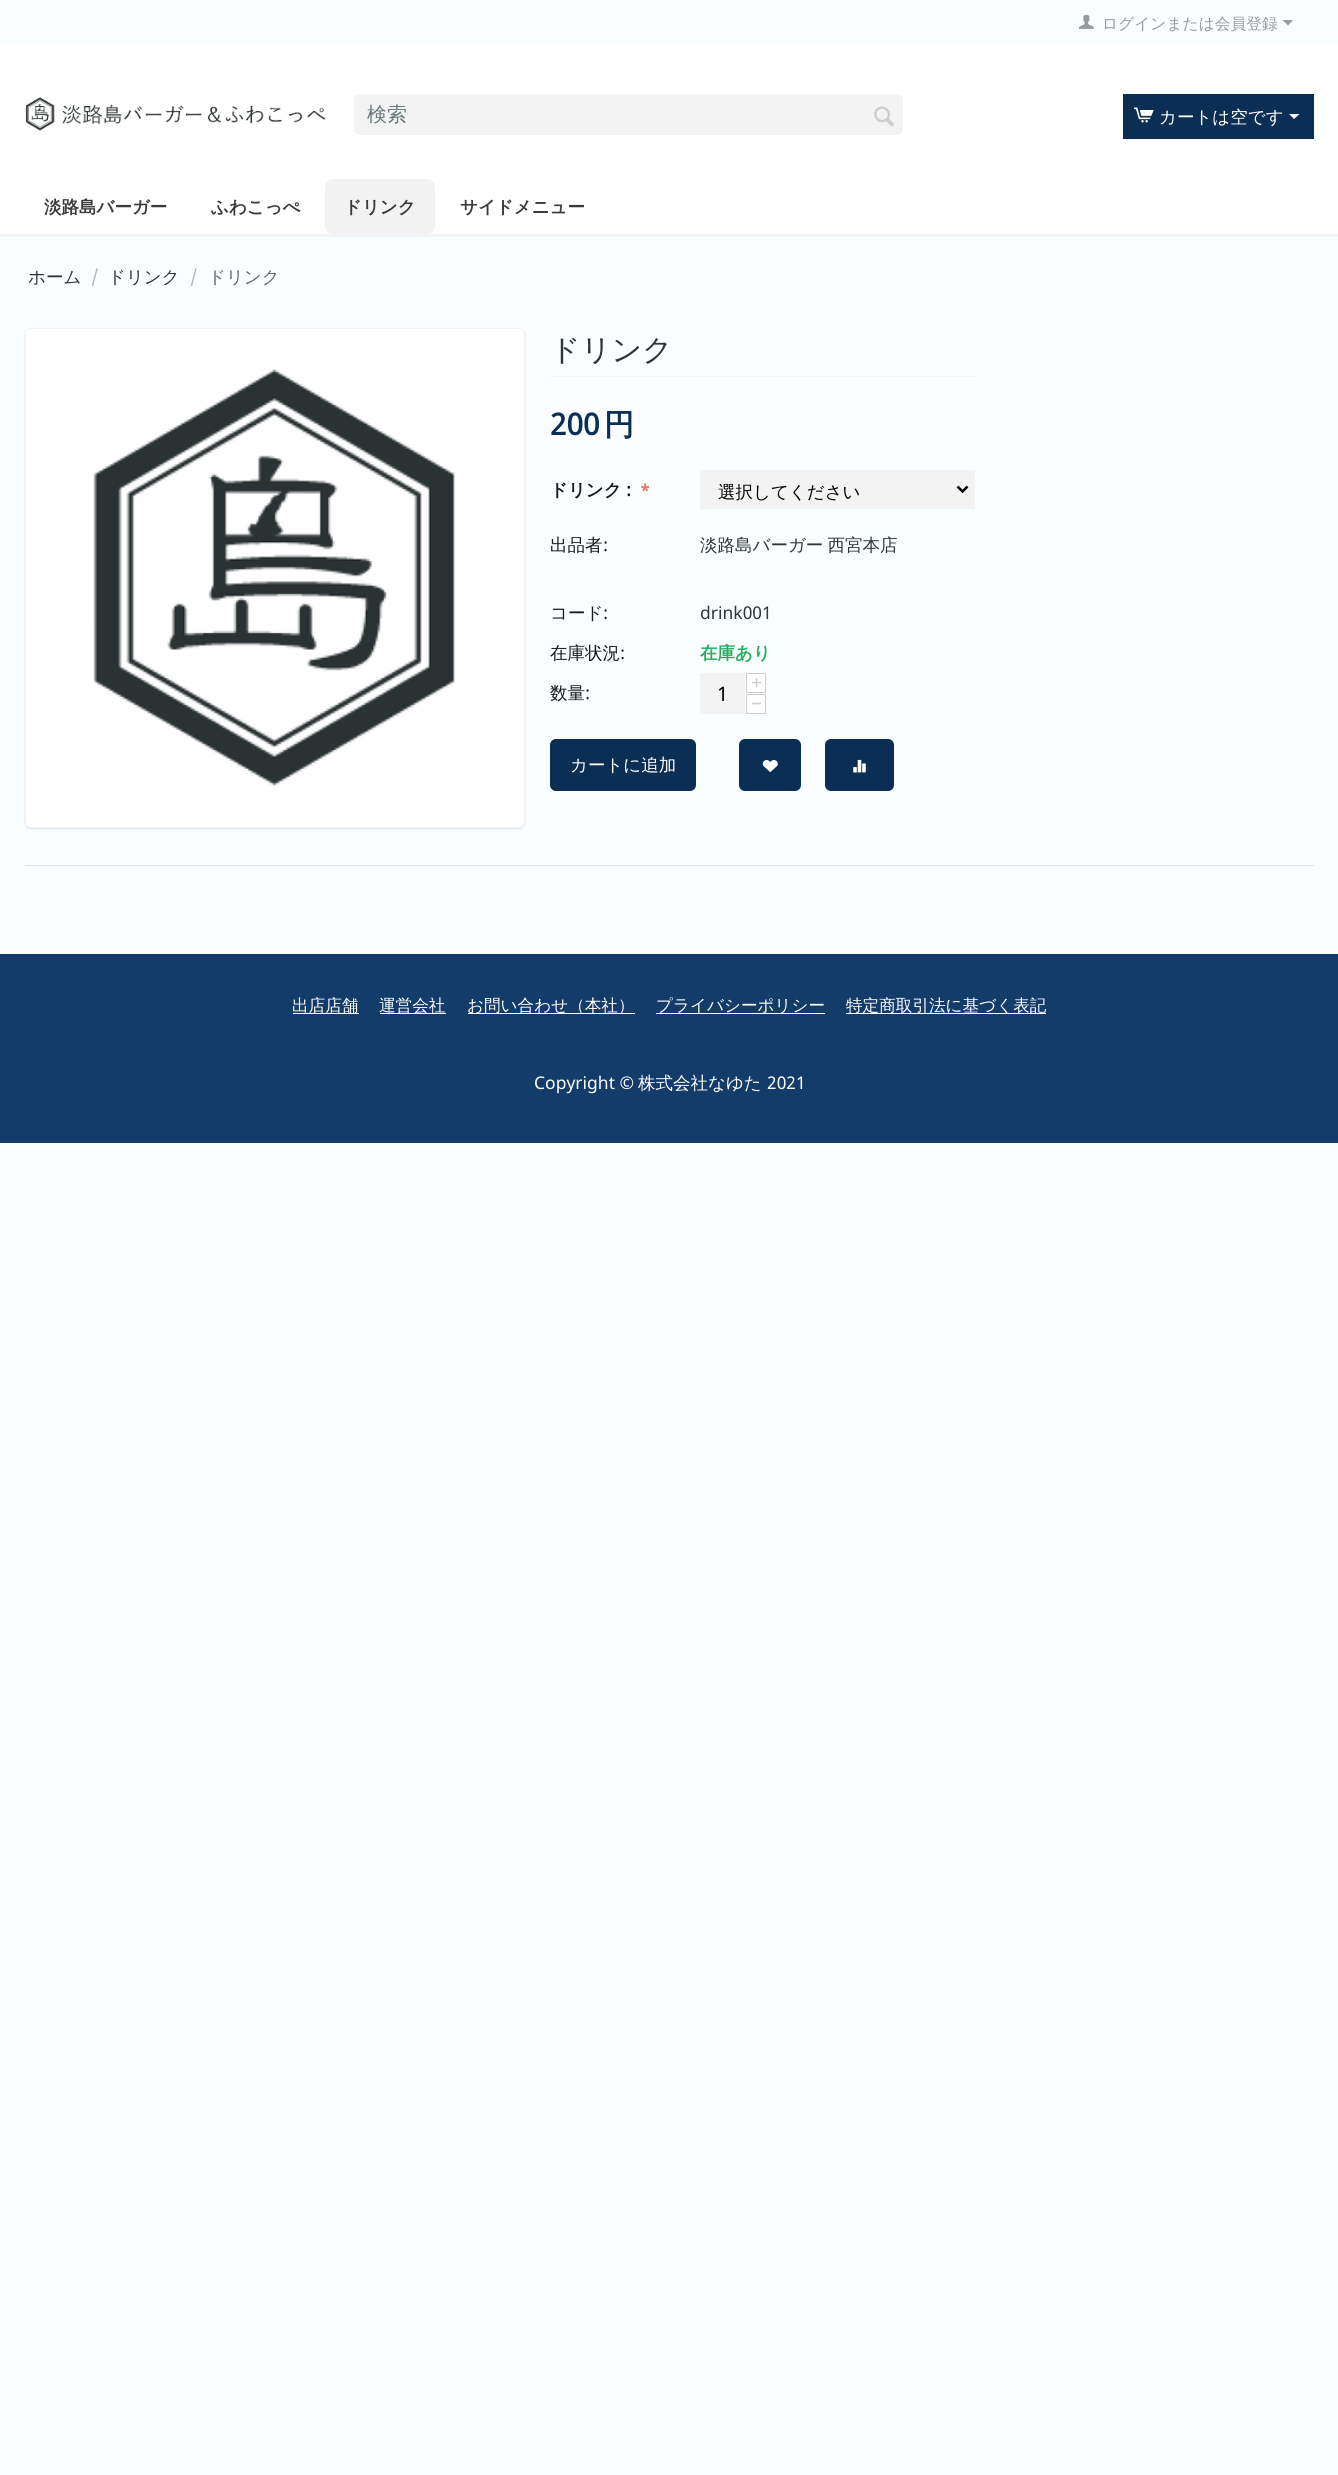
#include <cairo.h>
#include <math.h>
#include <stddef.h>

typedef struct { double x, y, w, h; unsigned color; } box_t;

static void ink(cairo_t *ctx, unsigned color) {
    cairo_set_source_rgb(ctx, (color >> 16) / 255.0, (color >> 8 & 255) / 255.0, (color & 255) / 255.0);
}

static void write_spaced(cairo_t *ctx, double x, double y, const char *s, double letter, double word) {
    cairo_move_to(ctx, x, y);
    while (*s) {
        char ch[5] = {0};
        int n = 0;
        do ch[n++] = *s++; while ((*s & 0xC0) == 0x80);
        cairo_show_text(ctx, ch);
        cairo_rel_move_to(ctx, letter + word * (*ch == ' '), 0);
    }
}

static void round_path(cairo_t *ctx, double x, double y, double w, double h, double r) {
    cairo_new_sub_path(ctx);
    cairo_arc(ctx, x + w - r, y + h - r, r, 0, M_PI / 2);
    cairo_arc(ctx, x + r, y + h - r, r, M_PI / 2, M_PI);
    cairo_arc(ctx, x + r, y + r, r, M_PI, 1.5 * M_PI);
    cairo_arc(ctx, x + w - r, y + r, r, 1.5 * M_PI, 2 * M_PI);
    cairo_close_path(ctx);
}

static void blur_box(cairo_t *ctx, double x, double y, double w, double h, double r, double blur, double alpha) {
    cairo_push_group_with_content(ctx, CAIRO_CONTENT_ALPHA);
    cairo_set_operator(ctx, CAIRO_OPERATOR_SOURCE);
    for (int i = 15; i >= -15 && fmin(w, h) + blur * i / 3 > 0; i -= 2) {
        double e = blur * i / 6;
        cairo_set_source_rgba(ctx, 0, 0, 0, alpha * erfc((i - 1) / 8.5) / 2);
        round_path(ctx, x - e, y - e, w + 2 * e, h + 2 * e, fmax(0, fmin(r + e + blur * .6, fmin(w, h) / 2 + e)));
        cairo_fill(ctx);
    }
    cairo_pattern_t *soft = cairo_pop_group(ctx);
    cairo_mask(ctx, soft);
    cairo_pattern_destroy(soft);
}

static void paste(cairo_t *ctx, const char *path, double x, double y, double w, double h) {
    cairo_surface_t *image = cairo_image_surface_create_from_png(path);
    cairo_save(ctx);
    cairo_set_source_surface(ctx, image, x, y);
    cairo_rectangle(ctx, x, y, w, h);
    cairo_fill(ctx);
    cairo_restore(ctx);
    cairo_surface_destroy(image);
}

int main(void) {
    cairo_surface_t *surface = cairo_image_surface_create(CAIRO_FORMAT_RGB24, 1338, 2475);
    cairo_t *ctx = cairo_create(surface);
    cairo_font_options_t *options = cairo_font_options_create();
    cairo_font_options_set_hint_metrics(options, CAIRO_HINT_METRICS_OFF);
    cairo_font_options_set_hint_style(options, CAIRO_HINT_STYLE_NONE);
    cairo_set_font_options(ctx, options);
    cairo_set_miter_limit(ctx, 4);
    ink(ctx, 0xFAFDFF);
    cairo_paint(ctx);
    paste(ctx, "media/1.png", 1079, 14, 15, 15);
    cairo_select_font_face(ctx, "WenQuanYi Zen Hei Medium", CAIRO_FONT_SLANT_NORMAL, CAIRO_FONT_WEIGHT_NORMAL);
    cairo_set_font_size(ctx, 15.75);
    ink(ctx, 0x969B9B);
    cairo_move_to(ctx, 1102, 29);
    cairo_show_text(ctx, "ログインまたは会員登録");
    cairo_new_path(ctx);
    cairo_move_to(ctx, 1288, 25.5);
    cairo_line_to(ctx, 1282.5, 20);
    cairo_line_to(ctx, 1293, 20);
    cairo_close_path(ctx);
    cairo_fill(ctx);
    ink(ctx, 0xFFFFFF);
    cairo_rectangle(ctx, 0, 45, 1338, 189);
    cairo_fill(ctx);
    paste(ctx, "media/2.png", 25, 97, 301, 34);
    ink(ctx, 0xF3F3F3);
    round_path(ctx, 355.5, 95.5, 546, 38, 4.5);
    cairo_fill_preserve(ctx);
    cairo_set_line_width(ctx, 3);
    cairo_stroke(ctx);
    cairo_set_font_size(ctx, 20);
    ink(ctx, 0x6A787A);
    cairo_move_to(ctx, 367, 121);
    cairo_show_text(ctx, "検索");
    paste(ctx, "media/3.png", 874, 106, 20, 21);
    ink(ctx, 0x0B2E55);
    cairo_rectangle(ctx, 1123, 94, 191, 45);
    cairo_fill(ctx);
    paste(ctx, "media/4.png", 1133, 107, 21, 16);
    cairo_set_font_size(ctx, 17.5);
    ink(ctx, 0xFFFFFF);
    cairo_move_to(ctx, 1159, 123);
    cairo_show_text(ctx, "カートは空です");
    cairo_new_path(ctx);
    cairo_move_to(ctx, 1294, 119);
    cairo_line_to(ctx, 1289, 114);
    cairo_line_to(ctx, 1299.5, 114);
    cairo_close_path(ctx);
    cairo_fill(ctx);
    cairo_select_font_face(ctx, "WenQuanYi Zen Hei", CAIRO_FONT_SLANT_NORMAL, CAIRO_FONT_WEIGHT_BOLD);
    ink(ctx, 0x393939);
    cairo_move_to(ctx, 44, 213);
    cairo_show_text(ctx, "淡路島バーガー");
    cairo_move_to(ctx, 211, 213);
    cairo_show_text(ctx, "ふわこっぺ");
    ink(ctx, 0xF2F2F2);
    round_path(ctx, 325, 179, 110, 55, 8);
    cairo_fill(ctx);
    ink(ctx, 0x393939);
    cairo_move_to(ctx, 344, 213);
    cairo_show_text(ctx, "ドリンク");
    cairo_move_to(ctx, 460, 213);
    cairo_show_text(ctx, "サイドメニュー");
    ink(ctx, 0xF3F3F3);
    cairo_rectangle(ctx, 0, 234, 1338, 3);
    cairo_fill(ctx);
    cairo_select_font_face(ctx, "WenQuanYi Zen Hei Medium", CAIRO_FONT_SLANT_NORMAL, CAIRO_FONT_WEIGHT_NORMAL);
    ink(ctx, 0x2F3536);
    cairo_move_to(ctx, 28, 283);
    cairo_show_text(ctx, "ホーム");
    cairo_select_font_face(ctx, "Noto Sans", CAIRO_FONT_SLANT_NORMAL, CAIRO_FONT_WEIGHT_NORMAL);
    ink(ctx, 0xB3B3B3);
    cairo_move_to(ctx, 91, 283);
    cairo_show_text(ctx, "/");
    cairo_select_font_face(ctx, "WenQuanYi Zen Hei Medium", CAIRO_FONT_SLANT_NORMAL, CAIRO_FONT_WEIGHT_NORMAL);
    ink(ctx, 0x2F3536);
    cairo_move_to(ctx, 108, 283);
    cairo_show_text(ctx, "ドリンク");
    cairo_select_font_face(ctx, "Noto Sans", CAIRO_FONT_SLANT_NORMAL, CAIRO_FONT_WEIGHT_NORMAL);
    ink(ctx, 0xB3B3B3);
    cairo_move_to(ctx, 190, 283);
    cairo_show_text(ctx, "/");
    cairo_select_font_face(ctx, "WenQuanYi Zen Hei Medium", CAIRO_FONT_SLANT_NORMAL, CAIRO_FONT_WEIGHT_NORMAL);
    ink(ctx, 0x666666);
    cairo_move_to(ctx, 208, 283);
    cairo_show_text(ctx, "ドリンク");
    ink(ctx, 0x000000);
    blur_box(ctx, 25, 329, 500, 500, 6, 1, 0.12);
    ink(ctx, 0xFFFFFF);
    round_path(ctx, 25.5, 328.5, 499, 499, 5.5);
    cairo_fill_preserve(ctx);
    ink(ctx, 0xF3F3F3);
    cairo_set_line_width(ctx, 1);
    cairo_stroke(ctx);
    paste(ctx, "media/5.png", 93, 369, 362, 417);
    cairo_rectangle(ctx, 550, 376, 425, 1);
    cairo_fill(ctx);
    cairo_set_font_size(ctx, 30);
    ink(ctx, 0x2F3536);
    cairo_move_to(ctx, 550, 360);
    cairo_show_text(ctx, "ドリンク");
    cairo_select_font_face(ctx, "Noto Sans", CAIRO_FONT_SLANT_NORMAL, CAIRO_FONT_WEIGHT_BOLD);
    ink(ctx, 0x0B2E55);
    cairo_move_to(ctx, 550, 435);
    cairo_show_text(ctx, "200");
    cairo_select_font_face(ctx, "WenQuanYi Zen Hei", CAIRO_FONT_SLANT_NORMAL, CAIRO_FONT_WEIGHT_BOLD);
    cairo_move_to(ctx, 604, 435);
    cairo_show_text(ctx, "円");
    cairo_set_font_size(ctx, 17.5);
    ink(ctx, 0x171A1B);
    cairo_move_to(ctx, 550, 496);
    cairo_show_text(ctx, "ドリンク");
    cairo_select_font_face(ctx, "Noto Sans", CAIRO_FONT_SLANT_NORMAL, CAIRO_FONT_WEIGHT_BOLD);
    cairo_move_to(ctx, 626, 496);
    cairo_show_text(ctx, ":");
    cairo_set_font_size(ctx, 16);
    ink(ctx, 0xEA7162);
    cairo_move_to(ctx, 640, 496);
    cairo_show_text(ctx, "*");
    ink(ctx, 0xF3F3F3);
    cairo_rectangle(ctx, 700, 470, 275, 39);
    cairo_fill(ctx);
    cairo_new_path(ctx);
    cairo_move_to(ctx, 957.5, 486.5);
    cairo_line_to(ctx, 962.5, 491.5);
    cairo_line_to(ctx, 967.5, 486.5);
    ink(ctx, 0x000000);
    cairo_set_line_width(ctx, 2.5);
    cairo_stroke(ctx);
    cairo_select_font_face(ctx, "WenQuanYi Zen Hei Medium", CAIRO_FONT_SLANT_NORMAL, CAIRO_FONT_WEIGHT_NORMAL);
    cairo_set_font_size(ctx, 17.5);
    cairo_move_to(ctx, 718, 498);
    cairo_show_text(ctx, "選択してください");
    ink(ctx, 0x171A1B);
    cairo_move_to(ctx, 550, 551);
    cairo_show_text(ctx, "出品者");
    cairo_select_font_face(ctx, "Noto Sans", CAIRO_FONT_SLANT_NORMAL, CAIRO_FONT_WEIGHT_NORMAL);
    cairo_move_to(ctx, 603, 551);
    cairo_show_text(ctx, ":");
    cairo_select_font_face(ctx, "WenQuanYi Zen Hei Medium", CAIRO_FONT_SLANT_NORMAL, CAIRO_FONT_WEIGHT_NORMAL);
    ink(ctx, 0x2F3536);
    write_spaced(ctx, 700, 551, "淡路島バーガー 西宮本店", 0, -1);
    ink(ctx, 0x171A1B);
    cairo_move_to(ctx, 550, 619);
    cairo_show_text(ctx, "コード");
    cairo_select_font_face(ctx, "Noto Sans", CAIRO_FONT_SLANT_NORMAL, CAIRO_FONT_WEIGHT_NORMAL);
    cairo_move_to(ctx, 603, 619);
    cairo_show_text(ctx, ":");
    ink(ctx, 0x2F3536);
    cairo_move_to(ctx, 700, 619);
    cairo_show_text(ctx, "drink001");
    cairo_select_font_face(ctx, "WenQuanYi Zen Hei Medium", CAIRO_FONT_SLANT_NORMAL, CAIRO_FONT_WEIGHT_NORMAL);
    ink(ctx, 0x171A1B);
    cairo_move_to(ctx, 550, 659);
    cairo_show_text(ctx, "在庫状況");
    cairo_select_font_face(ctx, "Noto Sans", CAIRO_FONT_SLANT_NORMAL, CAIRO_FONT_WEIGHT_NORMAL);
    cairo_move_to(ctx, 620, 659);
    cairo_show_text(ctx, ":");
    cairo_select_font_face(ctx, "WenQuanYi Zen Hei", CAIRO_FONT_SLANT_NORMAL, CAIRO_FONT_WEIGHT_BOLD);
    ink(ctx, 0x27AE60);
    cairo_move_to(ctx, 700, 659);
    cairo_show_text(ctx, "在庫あり");
    cairo_select_font_face(ctx, "WenQuanYi Zen Hei Medium", CAIRO_FONT_SLANT_NORMAL, CAIRO_FONT_WEIGHT_NORMAL);
    ink(ctx, 0x171A1B);
    cairo_move_to(ctx, 550, 699);
    cairo_show_text(ctx, "数量");
    cairo_select_font_face(ctx, "Noto Sans", CAIRO_FONT_SLANT_NORMAL, CAIRO_FONT_WEIGHT_NORMAL);
    cairo_move_to(ctx, 585, 699);
    cairo_show_text(ctx, ":");
    ink(ctx, 0xFFFFFF);
    cairo_rectangle(ctx, 746.5, 673.5, 19, 19);
    cairo_fill_preserve(ctx);
    ink(ctx, 0xCDCDCD);
    cairo_set_line_width(ctx, 1);
    cairo_stroke(ctx);
    cairo_set_font_size(ctx, 20);
    cairo_move_to(ctx, 751, 689);
    cairo_show_text(ctx, "+");
    ink(ctx, 0xF3F3F3);
    cairo_rectangle(ctx, 700, 673, 45, 41);
    cairo_fill(ctx);
    ink(ctx, 0x000000);
    cairo_move_to(ctx, 717, 701);
    cairo_show_text(ctx, "1");
    ink(ctx, 0xFFFFFF);
    cairo_rectangle(ctx, 746.5, 694.5, 19, 19);
    cairo_fill_preserve(ctx);
    ink(ctx, 0xCDCDCD);
    cairo_stroke(ctx);
    cairo_move_to(ctx, 751, 710);
    cairo_show_text(ctx, "−");
    ink(ctx, 0x0B2E55);
    round_path(ctx, 550, 739, 146, 52, 6);
    cairo_fill(ctx);
    cairo_select_font_face(ctx, "WenQuanYi Zen Hei Medium", CAIRO_FONT_SLANT_NORMAL, CAIRO_FONT_WEIGHT_NORMAL);
    cairo_set_font_size(ctx, 17.5);
    ink(ctx, 0xFFFFFF);
    cairo_move_to(ctx, 570, 771);
    cairo_show_text(ctx, "カートに追加");
    ink(ctx, 0x0B2E55);
    round_path(ctx, 739, 739, 62, 52, 6);
    cairo_fill(ctx);
    paste(ctx, "media/6.png", 762, 760, 16, 13);
    round_path(ctx, 825, 739, 69, 52, 6);
    cairo_fill(ctx);
    paste(ctx, "media/7.png", 853, 759, 13, 14);
    {
        static const box_t items[] = {
            {25, 865, 1289, 1, 0xE1E1E1},
            {0, 954, 1338, 189, 0x133C6A},
            {293, 1013, 66, 1, 0xFFFFFF},
        };
        for (size_t i = 0; i < sizeof items / sizeof *items; i++) {
            ink(ctx, items[i].color);
            cairo_rectangle(ctx, items[i].x, items[i].y, items[i].w, items[i].h);
            cairo_fill(ctx);
        }
    }
    cairo_set_font_size(ctx, 16.6);
    cairo_move_to(ctx, 292, 1011);
    cairo_show_text(ctx, "出店店舗");
    cairo_rectangle(ctx, 380, 1013, 66, 1);
    cairo_fill(ctx);
    cairo_move_to(ctx, 379, 1011);
    cairo_show_text(ctx, "運営会社");
    cairo_rectangle(ctx, 468, 1013, 167, 1);
    cairo_fill(ctx);
    cairo_move_to(ctx, 467, 1011);
    cairo_show_text(ctx, "お問い合わせ（本社）");
    cairo_rectangle(ctx, 656, 1013, 169, 1);
    cairo_fill(ctx);
    cairo_move_to(ctx, 656, 1011);
    cairo_show_text(ctx, "プライバシーポリシー");
    cairo_rectangle(ctx, 846, 1013, 200, 1);
    cairo_fill(ctx);
    cairo_move_to(ctx, 846, 1011);
    cairo_show_text(ctx, "特定商取引法に基づく表記");
    cairo_select_font_face(ctx, "Noto Sans", CAIRO_FONT_SLANT_NORMAL, CAIRO_FONT_WEIGHT_NORMAL);
    cairo_set_font_size(ctx, 17.5);
    cairo_move_to(ctx, 534, 1089);
    cairo_show_text(ctx, "Copyright ©");
    cairo_select_font_face(ctx, "WenQuanYi Zen Hei Medium", CAIRO_FONT_SLANT_NORMAL, CAIRO_FONT_WEIGHT_NORMAL);
    cairo_move_to(ctx, 638, 1089);
    cairo_show_text(ctx, "株式会社なゆた");
    cairo_select_font_face(ctx, "Noto Sans", CAIRO_FONT_SLANT_NORMAL, CAIRO_FONT_WEIGHT_NORMAL);
    cairo_move_to(ctx, 767, 1089);
    cairo_show_text(ctx, "2021");
    cairo_surface_write_to_png(surface, "image.png");
    cairo_font_options_destroy(options);
    cairo_destroy(ctx);
    cairo_surface_destroy(surface);
    return 0;
}
